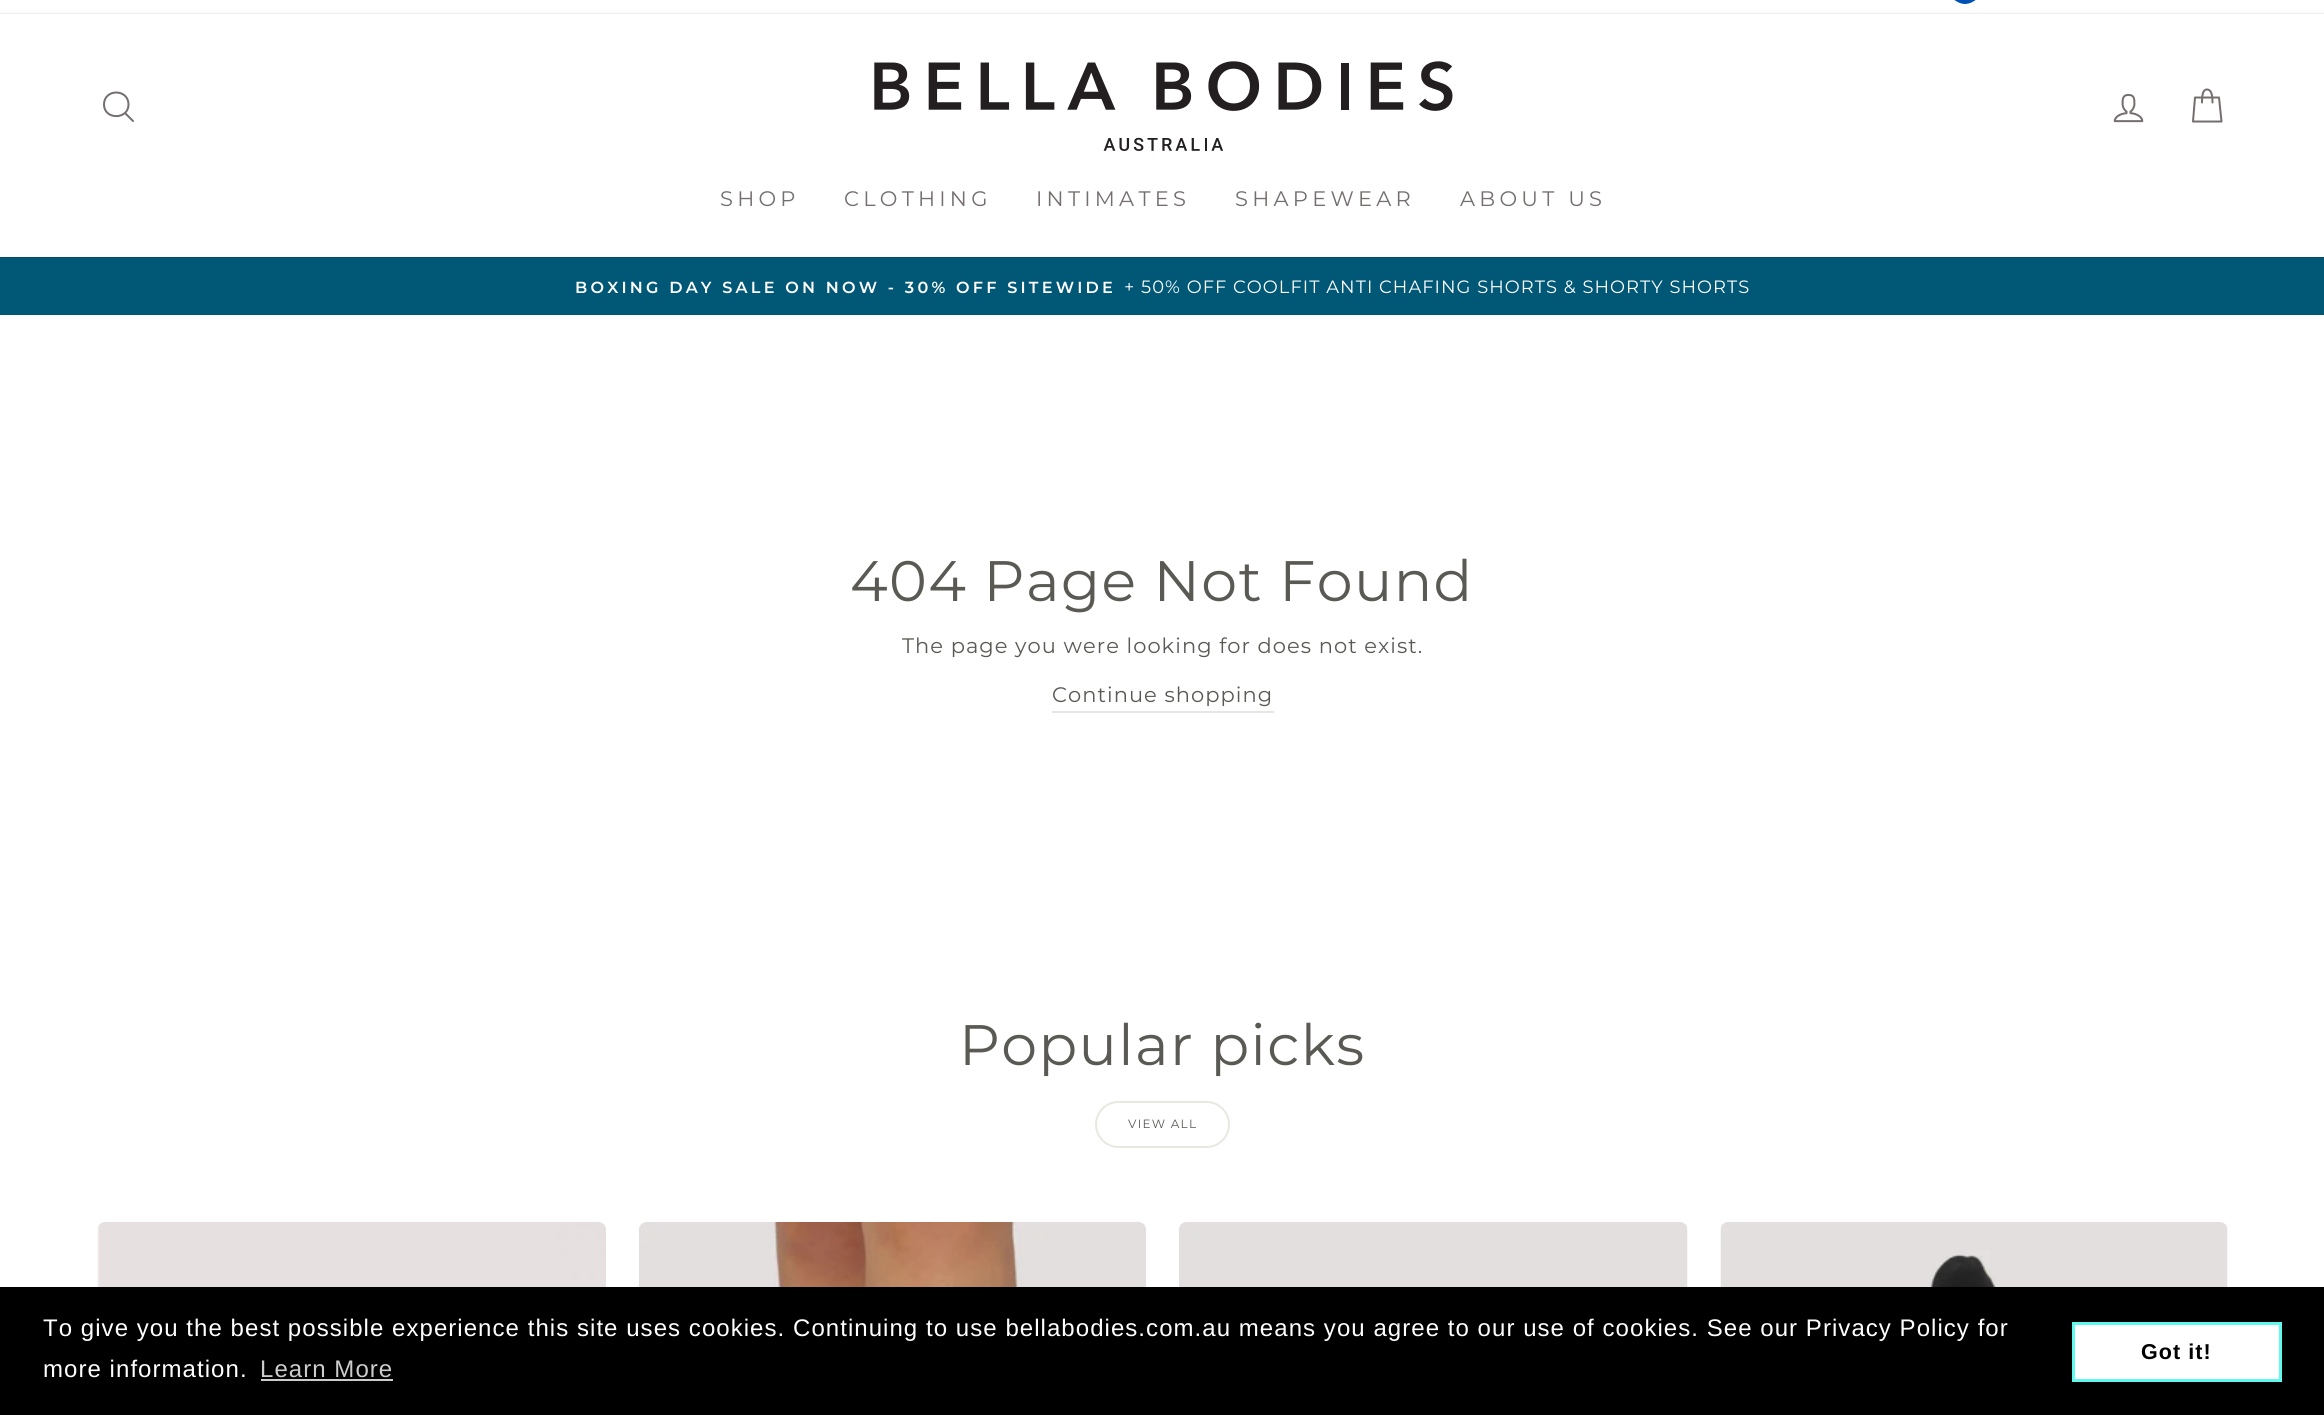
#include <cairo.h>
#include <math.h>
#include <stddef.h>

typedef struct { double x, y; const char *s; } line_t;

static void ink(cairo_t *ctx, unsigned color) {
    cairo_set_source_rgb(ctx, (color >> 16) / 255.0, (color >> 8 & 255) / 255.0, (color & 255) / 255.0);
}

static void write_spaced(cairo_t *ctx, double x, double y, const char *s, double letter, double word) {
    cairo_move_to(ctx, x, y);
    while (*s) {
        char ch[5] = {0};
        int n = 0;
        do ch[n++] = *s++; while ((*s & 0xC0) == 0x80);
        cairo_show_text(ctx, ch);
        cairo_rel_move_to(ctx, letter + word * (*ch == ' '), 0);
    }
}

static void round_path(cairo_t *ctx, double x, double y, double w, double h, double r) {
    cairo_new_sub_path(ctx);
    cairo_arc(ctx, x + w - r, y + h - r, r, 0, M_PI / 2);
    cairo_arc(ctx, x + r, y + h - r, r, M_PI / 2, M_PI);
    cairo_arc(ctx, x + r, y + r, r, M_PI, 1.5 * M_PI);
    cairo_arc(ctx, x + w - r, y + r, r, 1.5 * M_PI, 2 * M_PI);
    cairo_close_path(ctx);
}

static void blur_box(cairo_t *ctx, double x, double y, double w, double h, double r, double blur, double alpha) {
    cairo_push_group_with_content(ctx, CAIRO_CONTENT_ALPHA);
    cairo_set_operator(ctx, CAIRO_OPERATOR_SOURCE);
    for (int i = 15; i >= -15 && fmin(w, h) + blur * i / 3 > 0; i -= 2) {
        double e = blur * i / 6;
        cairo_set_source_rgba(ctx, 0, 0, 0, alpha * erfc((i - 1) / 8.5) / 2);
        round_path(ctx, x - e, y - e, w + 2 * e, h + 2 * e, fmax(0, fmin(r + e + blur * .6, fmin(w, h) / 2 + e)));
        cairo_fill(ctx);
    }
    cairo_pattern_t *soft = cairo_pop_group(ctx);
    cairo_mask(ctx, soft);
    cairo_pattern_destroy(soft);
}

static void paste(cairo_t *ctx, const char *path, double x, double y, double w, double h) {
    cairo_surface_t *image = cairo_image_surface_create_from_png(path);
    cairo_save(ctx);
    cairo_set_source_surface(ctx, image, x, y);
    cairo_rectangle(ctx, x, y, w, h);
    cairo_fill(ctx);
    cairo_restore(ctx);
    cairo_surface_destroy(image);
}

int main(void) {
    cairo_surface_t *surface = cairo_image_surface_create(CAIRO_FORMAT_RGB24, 2324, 1415);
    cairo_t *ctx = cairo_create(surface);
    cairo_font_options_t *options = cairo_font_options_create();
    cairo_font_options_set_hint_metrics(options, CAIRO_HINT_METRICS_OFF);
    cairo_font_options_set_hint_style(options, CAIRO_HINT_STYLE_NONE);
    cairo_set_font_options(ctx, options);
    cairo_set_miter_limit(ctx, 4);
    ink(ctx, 0xFFFFFF);
    cairo_paint(ctx);
    paste(ctx, "media/1.png", 1954, 0, 22, 4);
    ink(ctx, 0x005776);
    cairo_rectangle(ctx, 0, 257, 2324, 58);
    cairo_fill(ctx);
    ink(ctx, 0x000000);
    blur_box(ctx, 0, 14, 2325, 243, 0, 1, 0.2);
    ink(ctx, 0xFFFFFF);
    cairo_rectangle(ctx, 0, 14, 2324, 243);
    cairo_fill(ctx);
    cairo_new_path(ctx);
    cairo_move_to(ctx, 128.5, 104.5);
    cairo_curve_to(ctx, 128.5, 120, 104, 120, 104, 104.5);
    cairo_curve_to(ctx, 104, 88.5, 128.5, 88.5, 128.5, 104.5);
    cairo_close_path(ctx);
    cairo_move_to(ctx, 133, 121);
    cairo_line_to(ctx, 125, 113);
    ink(ctx, 0x756E6E);
    cairo_set_line_cap(ctx, CAIRO_LINE_CAP_ROUND);
    cairo_set_line_join(ctx, CAIRO_LINE_JOIN_ROUND);
    cairo_stroke(ctx);
    paste(ctx, "media/2.png", 874, 61, 579, 90);
    paste(ctx, "media/3.png", 2113, 93, 31, 30);
    cairo_new_path(ctx);
    cairo_move_to(ctx, 2202, 102.5);
    cairo_curve_to(ctx, 2202, 92, 2204, 89.5, 2207, 89.5);
    cairo_curve_to(ctx, 2210, 89.5, 2212.5, 92, 2212.5, 102.5);
    cairo_move_to(ctx, 2195, 97.5);
    cairo_line_to(ctx, 2219, 97.5);
    cairo_line_to(ctx, 2221.5, 121.5);
    cairo_line_to(ctx, 2193, 121.5);
    cairo_close_path(ctx);
    cairo_stroke(ctx);
    cairo_select_font_face(ctx, "Montserrat Thin", CAIRO_FONT_SLANT_NORMAL, CAIRO_FONT_WEIGHT_NORMAL);
    cairo_set_font_size(ctx, 21);
    {
        static const line_t items[] = {
            {720, 206, "SHOP"},
            {844, 206, "CLOTHING"},
            {1036, 206, "INTIMATES"},
            {1235, 206, "SHAPEWEAR"},
            {1460, 206, "ABOUT US"},
        };
        for (size_t i = 0; i < sizeof items / sizeof *items; i++) {
            write_spaced(ctx, items[i].x, items[i].y, items[i].s, 4.25, 0);
        }
    }
    cairo_select_font_face(ctx, "Montserrat SemiBold", CAIRO_FONT_SLANT_NORMAL, CAIRO_FONT_WEIGHT_NORMAL);
    cairo_set_font_size(ctx, 16.05);
    ink(ctx, 0xFFFFFF);
    write_spaced(ctx, 575, 293, "BOXING DAY SALE ON NOW - 30% OFF SITEWIDE", 3.2, 0);
    cairo_select_font_face(ctx, "Montserrat Thin", CAIRO_FONT_SLANT_NORMAL, CAIRO_FONT_WEIGHT_NORMAL);
    cairo_set_font_size(ctx, 17.85);
    write_spaced(ctx, 1124, 293, "+ 50% OFF COOLFIT ANTI CHAFING SHORTS & SHORTY SHORTS", 1.05, 0);
    cairo_set_font_size(ctx, 57);
    ink(ctx, 0x5A5954);
    write_spaced(ctx, 850, 601, "404 Page Not Found", 1.4, 0);
    cairo_set_font_size(ctx, 21);
    write_spaced(ctx, 902, 653, "The page you were looking for does not exist.", 1.05, 0);
    ink(ctx, 0xE6E6E5);
    cairo_rectangle(ctx, 1052, 711, 222, 2);
    cairo_fill(ctx);
    ink(ctx, 0x5A5954);
    write_spaced(ctx, 1052, 702, "Continue shopping", 1.05, 0);
    cairo_set_font_size(ctx, 57);
    write_spaced(ctx, 959, 1065, "Popular picks", 1.4, 0);
    round_path(ctx, 1096, 1102, 133, 45, 22.5);
    ink(ctx, 0xE8E8E1);
    cairo_set_line_cap(ctx, CAIRO_LINE_CAP_BUTT);
    cairo_set_line_join(ctx, CAIRO_LINE_JOIN_MITER);
    cairo_stroke(ctx);
    cairo_set_font_size(ctx, 12);
    ink(ctx, 0x5A5954);
    write_spaced(ctx, 1128, 1128, "VIEW ALL", 1.25, 0);
    paste(ctx, "media/4.png", 97, 1222, 509, 65);
    paste(ctx, "media/5.png", 639, 1222, 507, 65);
    paste(ctx, "media/6.png", 1179, 1222, 509, 65);
    paste(ctx, "media/7.png", 1720, 1222, 508, 65);
    ink(ctx, 0x000000);
    cairo_rectangle(ctx, 0, 1287, 2324, 128);
    cairo_fill(ctx);
    cairo_select_font_face(ctx, "Liberation Sans", CAIRO_FONT_SLANT_NORMAL, CAIRO_FONT_WEIGHT_NORMAL);
    cairo_set_font_size(ctx, 24);
    ink(ctx, 0xFFFFFF);
    write_spaced(ctx, 43, 1336, "To give you the best possible experience this site uses cookies. Continuing to use bellabodies.com.au means you agree to our use of cookies. See our Privacy Policy for", 1.05, 0);
    write_spaced(ctx, 43, 1377, "more information.", 1.05, 0);
    ink(ctx, 0xCCCCCC);
    write_spaced(ctx, 260, 1377, "Learn More", 1.05, 0);
    cairo_rectangle(ctx, 261, 1379, 132, 2);
    cairo_fill(ctx);
    ink(ctx, 0xFFFFFF);
    cairo_rectangle(ctx, 2073.5, 1323.5, 207, 57);
    cairo_fill_preserve(ctx);
    ink(ctx, 0x60F9ED);
    cairo_set_line_width(ctx, 3);
    cairo_stroke(ctx);
    cairo_select_font_face(ctx, "Liberation Sans", CAIRO_FONT_SLANT_NORMAL, CAIRO_FONT_WEIGHT_BOLD);
    cairo_set_font_size(ctx, 21.5);
    ink(ctx, 0x000000);
    write_spaced(ctx, 2141, 1359, "Got it!", 1.05, 0);
    cairo_surface_write_to_png(surface, "image.png");
    cairo_font_options_destroy(options);
    cairo_destroy(ctx);
    cairo_surface_destroy(surface);
    return 0;
}
